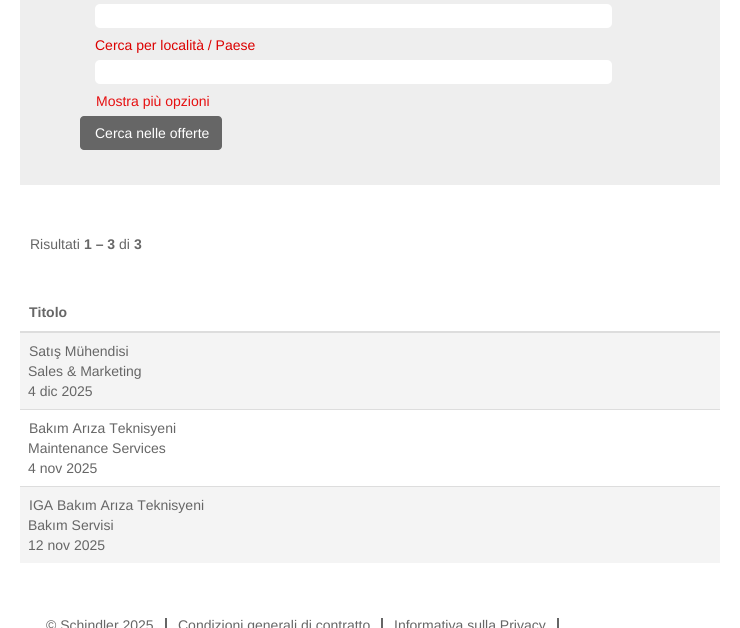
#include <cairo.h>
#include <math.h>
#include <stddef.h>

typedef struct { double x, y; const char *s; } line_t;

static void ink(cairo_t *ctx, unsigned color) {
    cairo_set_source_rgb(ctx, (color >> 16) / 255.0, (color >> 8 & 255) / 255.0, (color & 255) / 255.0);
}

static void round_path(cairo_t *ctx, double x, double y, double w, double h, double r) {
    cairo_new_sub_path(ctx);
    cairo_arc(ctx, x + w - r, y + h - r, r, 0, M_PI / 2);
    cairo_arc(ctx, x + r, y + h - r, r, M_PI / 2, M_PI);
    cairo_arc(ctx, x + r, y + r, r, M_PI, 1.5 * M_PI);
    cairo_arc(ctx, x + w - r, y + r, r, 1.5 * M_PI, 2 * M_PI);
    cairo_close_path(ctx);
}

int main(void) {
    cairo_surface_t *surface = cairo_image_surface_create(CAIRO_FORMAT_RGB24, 740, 628);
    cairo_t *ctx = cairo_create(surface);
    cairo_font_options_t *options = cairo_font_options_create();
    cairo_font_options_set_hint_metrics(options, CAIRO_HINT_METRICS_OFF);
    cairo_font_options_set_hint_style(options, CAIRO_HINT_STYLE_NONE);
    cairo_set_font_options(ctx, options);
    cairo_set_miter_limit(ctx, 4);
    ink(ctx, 0xFFFFFF);
    cairo_paint(ctx);
    ink(ctx, 0xEEEEEE);
    cairo_rectangle(ctx, 20, 0, 700, 185);
    cairo_fill(ctx);
    ink(ctx, 0xFFFFFF);
    round_path(ctx, 95, 4, 517, 24, 5);
    cairo_fill(ctx);
    cairo_select_font_face(ctx, "Liberation Sans", CAIRO_FONT_SLANT_NORMAL, CAIRO_FONT_WEIGHT_NORMAL);
    cairo_set_font_size(ctx, 14);
    ink(ctx, 0xDC0000);
    cairo_move_to(ctx, 95, 50);
    cairo_show_text(ctx, "Cerca per località / Paese");
    ink(ctx, 0xFFFFFF);
    round_path(ctx, 95, 60, 517, 24, 5);
    cairo_fill(ctx);
    ink(ctx, 0xE60F10);
    cairo_move_to(ctx, 96, 106);
    cairo_show_text(ctx, "Mostra più opzioni");
    ink(ctx, 0x666666);
    round_path(ctx, 80, 116, 142, 34, 4);
    cairo_fill(ctx);
    ink(ctx, 0xFFFFFF);
    cairo_move_to(ctx, 95, 138);
    cairo_show_text(ctx, "Cerca nelle offerte");
    ink(ctx, 0x666666);
    cairo_move_to(ctx, 30, 249);
    cairo_show_text(ctx, "Risultati");
    cairo_select_font_face(ctx, "Liberation Sans", CAIRO_FONT_SLANT_NORMAL, CAIRO_FONT_WEIGHT_BOLD);
    cairo_move_to(ctx, 84, 249);
    cairo_show_text(ctx, "1 – 3");
    cairo_select_font_face(ctx, "Liberation Sans", CAIRO_FONT_SLANT_NORMAL, CAIRO_FONT_WEIGHT_NORMAL);
    cairo_move_to(ctx, 119, 249);
    cairo_show_text(ctx, "di");
    cairo_select_font_face(ctx, "Liberation Sans", CAIRO_FONT_SLANT_NORMAL, CAIRO_FONT_WEIGHT_BOLD);
    cairo_move_to(ctx, 134, 249);
    cairo_show_text(ctx, "3");
    ink(ctx, 0xDDDDDD);
    cairo_rectangle(ctx, 20, 331, 700, 2);
    cairo_fill(ctx);
    ink(ctx, 0x666666);
    cairo_move_to(ctx, 29, 317);
    cairo_show_text(ctx, "Titolo");
    ink(ctx, 0xF4F4F4);
    cairo_rectangle(ctx, 20, 333, 700, 76);
    cairo_fill(ctx);
    cairo_select_font_face(ctx, "Liberation Sans", CAIRO_FONT_SLANT_NORMAL, CAIRO_FONT_WEIGHT_NORMAL);
    ink(ctx, 0x666666);
    {
        static const line_t items[] = {
            {29, 356, "Satış Mühendisi"},
            {28, 376, "Sales & Marketing"},
            {28, 396, "4 dic 2025"},
        };
        for (size_t i = 0; i < sizeof items / sizeof *items; i++) {
            cairo_move_to(ctx, items[i].x, items[i].y);
            cairo_show_text(ctx, items[i].s);
        }
    }
    ink(ctx, 0xDDDDDD);
    cairo_rectangle(ctx, 20, 409, 700, 1);
    cairo_fill(ctx);
    ink(ctx, 0x666666);
    {
        static const line_t items[] = {
            {29, 433, "Bakım Arıza Teknisyeni"},
            {28, 453, "Maintenance Services"},
            {28, 473, "4 nov 2025"},
        };
        for (size_t i = 0; i < sizeof items / sizeof *items; i++) {
            cairo_move_to(ctx, items[i].x, items[i].y);
            cairo_show_text(ctx, items[i].s);
        }
    }
    ink(ctx, 0xF4F4F4);
    cairo_rectangle(ctx, 20, 487, 700, 76);
    cairo_fill(ctx);
    ink(ctx, 0xDDDDDD);
    cairo_rectangle(ctx, 20, 486, 700, 1);
    cairo_fill(ctx);
    ink(ctx, 0x666666);
    {
        static const line_t items[] = {
            {29, 510, "IGA Bakım Arıza Teknisyeni"},
            {28, 530, "Bakım Servisi"},
            {28, 550, "12 nov 2025"},
        };
        for (size_t i = 0; i < sizeof items / sizeof *items; i++) {
            cairo_move_to(ctx, items[i].x, items[i].y);
            cairo_show_text(ctx, items[i].s);
        }
    }
    cairo_rectangle(ctx, 165, 618, 2, 10);
    cairo_fill(ctx);
    cairo_move_to(ctx, 46, 630);
    cairo_show_text(ctx, "© Schindler 2025");
    cairo_rectangle(ctx, 381, 618, 2, 10);
    cairo_fill(ctx);
    cairo_move_to(ctx, 178, 630);
    cairo_show_text(ctx, "Condizioni generali di contratto");
    cairo_rectangle(ctx, 557, 618, 2, 10);
    cairo_fill(ctx);
    cairo_move_to(ctx, 394, 630);
    cairo_show_text(ctx, "Informativa sulla Privacy");
    cairo_surface_write_to_png(surface, "image.png");
    cairo_font_options_destroy(options);
    cairo_destroy(ctx);
    cairo_surface_destroy(surface);
    return 0;
}
